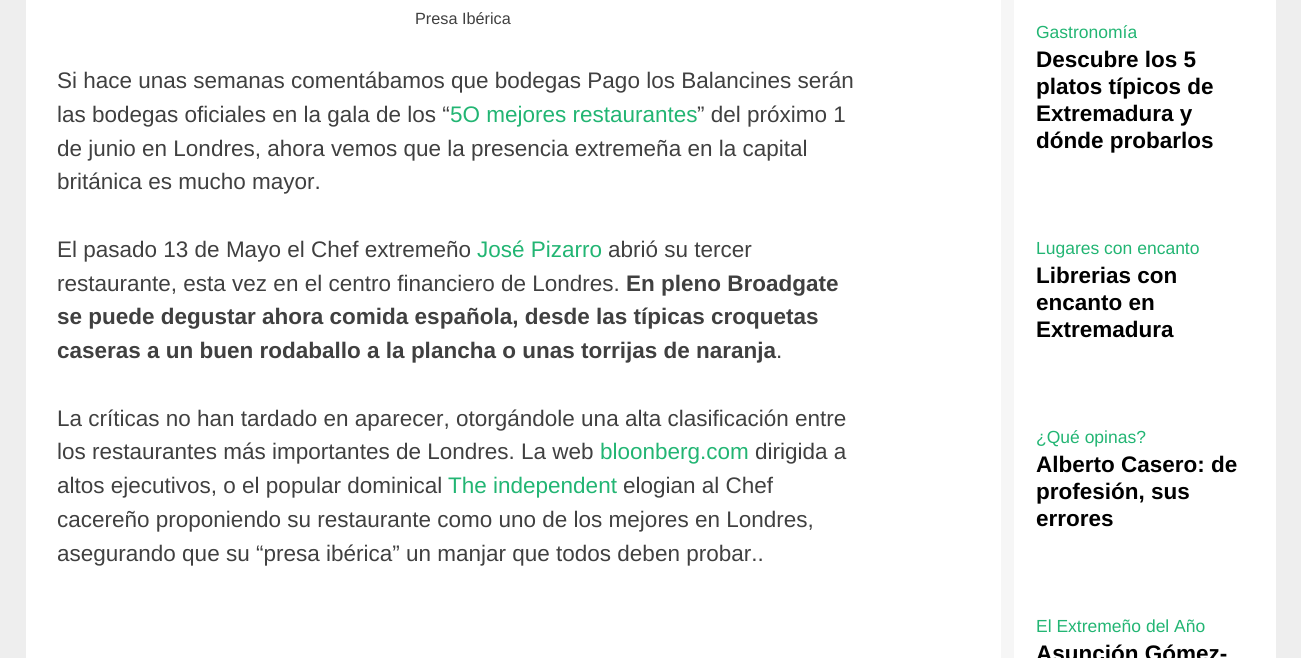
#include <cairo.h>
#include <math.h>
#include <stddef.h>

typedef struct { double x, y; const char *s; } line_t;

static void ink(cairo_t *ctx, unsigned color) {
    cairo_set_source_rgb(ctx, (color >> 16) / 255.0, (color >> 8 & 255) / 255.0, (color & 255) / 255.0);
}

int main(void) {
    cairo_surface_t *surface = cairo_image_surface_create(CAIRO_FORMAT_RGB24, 1301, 658);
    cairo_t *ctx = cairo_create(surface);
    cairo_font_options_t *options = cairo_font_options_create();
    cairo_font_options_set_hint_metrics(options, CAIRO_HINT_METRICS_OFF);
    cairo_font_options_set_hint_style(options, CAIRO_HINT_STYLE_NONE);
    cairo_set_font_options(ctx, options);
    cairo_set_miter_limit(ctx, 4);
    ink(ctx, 0xEEEEEE);
    cairo_paint(ctx);
    ink(ctx, 0xFFFFFF);
    cairo_rectangle(ctx, 26, 0, 1250, 658);
    cairo_fill(ctx);
    cairo_select_font_face(ctx, "Liberation Sans", CAIRO_FONT_SLANT_NORMAL, CAIRO_FONT_WEIGHT_NORMAL);
    cairo_set_font_size(ctx, 16.25);
    ink(ctx, 0x404040);
    cairo_move_to(ctx, 415, 24);
    cairo_show_text(ctx, "Presa Ibérica");
    cairo_set_font_size(ctx, 22.5);
    cairo_move_to(ctx, 57, 88);
    cairo_show_text(ctx, "Si hace unas semanas comentábamos que bodegas Pago los Balancines serán");
    cairo_move_to(ctx, 57, 122);
    cairo_show_text(ctx, "las bodegas oficiales en la gala de los “");
    ink(ctx, 0x22B573);
    cairo_move_to(ctx, 450, 122);
    cairo_show_text(ctx, "5O mejores restaurantes");
    ink(ctx, 0x404040);
    {
        static const line_t items[] = {
            {697, 122, "” del próximo 1"},
            {57, 156, "de junio en Londres, ahora vemos que la presencia extremeña en la capital"},
            {57, 189, "británica es mucho mayor."},
            {57, 257, "El pasado 13 de Mayo el Chef extremeño"},
        };
        for (size_t i = 0; i < sizeof items / sizeof *items; i++) {
            cairo_move_to(ctx, items[i].x, items[i].y);
            cairo_show_text(ctx, items[i].s);
        }
    }
    ink(ctx, 0x22B573);
    cairo_move_to(ctx, 477, 257);
    cairo_show_text(ctx, "José Pizarro");
    ink(ctx, 0x404040);
    cairo_move_to(ctx, 608, 257);
    cairo_show_text(ctx, "abrió su tercer");
    cairo_move_to(ctx, 57, 291);
    cairo_show_text(ctx, "restaurante, esta vez en el centro financiero de Londres.");
    cairo_select_font_face(ctx, "Liberation Sans", CAIRO_FONT_SLANT_NORMAL, CAIRO_FONT_WEIGHT_BOLD);
    {
        static const line_t items[] = {
            {626, 291, "En pleno Broadgate"},
            {57, 324, "se puede degustar ahora comida española, desde las típicas croquetas"},
            {57, 358, "caseras a un buen rodaballo a la plancha o unas torrijas de naranja"},
        };
        for (size_t i = 0; i < sizeof items / sizeof *items; i++) {
            cairo_move_to(ctx, items[i].x, items[i].y);
            cairo_show_text(ctx, items[i].s);
        }
    }
    cairo_select_font_face(ctx, "Liberation Sans", CAIRO_FONT_SLANT_NORMAL, CAIRO_FONT_WEIGHT_NORMAL);
    {
        static const line_t items[] = {
            {776, 358, "."},
            {57, 426, "La críticas no han tardado en aparecer, otorgándole una alta clasificación entre"},
            {57, 459, "los restaurantes más importantes de Londres. La web"},
        };
        for (size_t i = 0; i < sizeof items / sizeof *items; i++) {
            cairo_move_to(ctx, items[i].x, items[i].y);
            cairo_show_text(ctx, items[i].s);
        }
    }
    ink(ctx, 0x22B573);
    cairo_move_to(ctx, 600, 459);
    cairo_show_text(ctx, "bloonberg.com");
    ink(ctx, 0x404040);
    cairo_move_to(ctx, 755, 459);
    cairo_show_text(ctx, "dirigida a");
    cairo_move_to(ctx, 57, 493);
    cairo_show_text(ctx, "altos ejecutivos, o el popular dominical");
    ink(ctx, 0x22B573);
    cairo_move_to(ctx, 448, 493);
    cairo_show_text(ctx, "The independent");
    ink(ctx, 0x404040);
    {
        static const line_t items[] = {
            {623, 493, "elogian al Chef"},
            {57, 527, "cacereño proponiendo su restaurante como uno de los mejores en Londres,"},
            {57, 561, "asegurando que su “presa ibérica” un manjar que todos deben probar.."},
        };
        for (size_t i = 0; i < sizeof items / sizeof *items; i++) {
            cairo_move_to(ctx, items[i].x, items[i].y);
            cairo_show_text(ctx, items[i].s);
        }
    }
    ink(ctx, 0xF6F6F6);
    cairo_rectangle(ctx, 1001, 0, 13, 658);
    cairo_fill(ctx);
    cairo_set_font_size(ctx, 17.5);
    ink(ctx, 0x22B573);
    cairo_move_to(ctx, 1036, 38);
    cairo_show_text(ctx, "Gastronomía");
    cairo_select_font_face(ctx, "Liberation Sans", CAIRO_FONT_SLANT_NORMAL, CAIRO_FONT_WEIGHT_BOLD);
    cairo_set_font_size(ctx, 22.5);
    ink(ctx, 0x000000);
    {
        static const line_t items[] = {
            {1036, 67, "Descubre los 5"},
            {1036, 94, "platos típicos de"},
            {1036, 121, "Extremadura y"},
            {1036, 148, "dónde probarlos"},
        };
        for (size_t i = 0; i < sizeof items / sizeof *items; i++) {
            cairo_move_to(ctx, items[i].x, items[i].y);
            cairo_show_text(ctx, items[i].s);
        }
    }
    cairo_select_font_face(ctx, "Liberation Sans", CAIRO_FONT_SLANT_NORMAL, CAIRO_FONT_WEIGHT_NORMAL);
    cairo_set_font_size(ctx, 17.5);
    ink(ctx, 0x22B573);
    cairo_move_to(ctx, 1036, 254);
    cairo_show_text(ctx, "Lugares con encanto");
    cairo_select_font_face(ctx, "Liberation Sans", CAIRO_FONT_SLANT_NORMAL, CAIRO_FONT_WEIGHT_BOLD);
    cairo_set_font_size(ctx, 22.5);
    ink(ctx, 0x000000);
    {
        static const line_t items[] = {
            {1036, 283, "Librerias con"},
            {1036, 310, "encanto en"},
            {1036, 337, "Extremadura"},
        };
        for (size_t i = 0; i < sizeof items / sizeof *items; i++) {
            cairo_move_to(ctx, items[i].x, items[i].y);
            cairo_show_text(ctx, items[i].s);
        }
    }
    cairo_select_font_face(ctx, "Liberation Sans", CAIRO_FONT_SLANT_NORMAL, CAIRO_FONT_WEIGHT_NORMAL);
    cairo_set_font_size(ctx, 17.5);
    ink(ctx, 0x22B573);
    cairo_move_to(ctx, 1036, 443);
    cairo_show_text(ctx, "¿Qué opinas?");
    cairo_select_font_face(ctx, "Liberation Sans", CAIRO_FONT_SLANT_NORMAL, CAIRO_FONT_WEIGHT_BOLD);
    cairo_set_font_size(ctx, 22.5);
    ink(ctx, 0x000000);
    {
        static const line_t items[] = {
            {1036, 472, "Alberto Casero: de"},
            {1036, 499, "profesión, sus"},
            {1036, 526, "errores"},
        };
        for (size_t i = 0; i < sizeof items / sizeof *items; i++) {
            cairo_move_to(ctx, items[i].x, items[i].y);
            cairo_show_text(ctx, items[i].s);
        }
    }
    cairo_select_font_face(ctx, "Liberation Sans", CAIRO_FONT_SLANT_NORMAL, CAIRO_FONT_WEIGHT_NORMAL);
    cairo_set_font_size(ctx, 17.5);
    ink(ctx, 0x22B573);
    cairo_move_to(ctx, 1036, 632);
    cairo_show_text(ctx, "El Extremeño del Año");
    cairo_select_font_face(ctx, "Liberation Sans", CAIRO_FONT_SLANT_NORMAL, CAIRO_FONT_WEIGHT_BOLD);
    cairo_set_font_size(ctx, 22.5);
    ink(ctx, 0x000000);
    cairo_move_to(ctx, 1036, 661);
    cairo_show_text(ctx, "Asunción Gómez-");
    cairo_surface_write_to_png(surface, "image.png");
    cairo_font_options_destroy(options);
    cairo_destroy(ctx);
    cairo_surface_destroy(surface);
    return 0;
}
